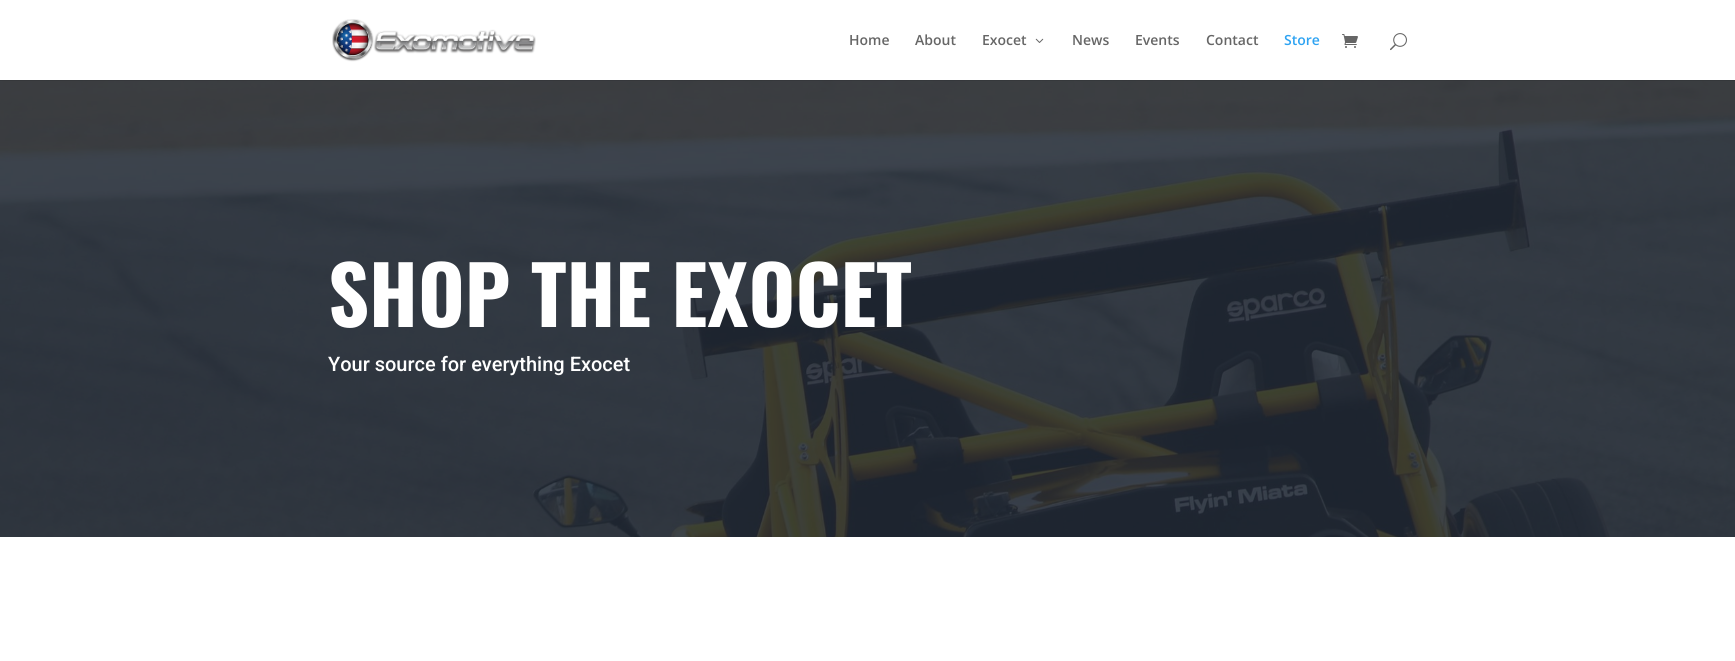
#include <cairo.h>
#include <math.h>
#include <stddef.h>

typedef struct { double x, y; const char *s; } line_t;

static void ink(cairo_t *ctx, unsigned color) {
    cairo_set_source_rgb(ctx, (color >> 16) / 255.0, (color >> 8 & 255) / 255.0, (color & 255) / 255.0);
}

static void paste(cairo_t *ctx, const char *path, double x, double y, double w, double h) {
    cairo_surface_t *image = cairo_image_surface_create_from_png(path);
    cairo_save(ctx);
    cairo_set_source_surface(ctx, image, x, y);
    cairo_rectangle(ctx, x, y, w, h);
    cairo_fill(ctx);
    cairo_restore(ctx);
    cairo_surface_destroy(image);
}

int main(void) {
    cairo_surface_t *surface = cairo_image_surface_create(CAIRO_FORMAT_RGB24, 1735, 661);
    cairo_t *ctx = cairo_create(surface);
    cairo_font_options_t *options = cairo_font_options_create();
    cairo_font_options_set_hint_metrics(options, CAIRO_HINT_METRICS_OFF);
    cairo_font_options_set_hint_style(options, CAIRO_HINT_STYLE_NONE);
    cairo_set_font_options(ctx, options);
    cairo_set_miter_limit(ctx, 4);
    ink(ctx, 0xFFFFFF);
    cairo_paint(ctx);
    paste(ctx, "media/5.png", 0, 80, 1735, 457);
    cairo_set_source_rgba(ctx, 0, 0, 0, 0.1);
    cairo_rectangle(ctx, 0, 80, 1735, 1);
    cairo_fill(ctx);
    paste(ctx, "media/1.png", 332, 19, 204, 43);
    cairo_select_font_face(ctx, "Open Sans SemiBold", CAIRO_FONT_SLANT_NORMAL, CAIRO_FONT_WEIGHT_NORMAL);
    cairo_set_font_size(ctx, 14);
    ink(ctx, 0x666666);
    {
        static const line_t items[] = {
            {849, 45, "Home"},
            {915, 45, "About"},
            {982, 45, "Exocet"},
        };
        for (size_t i = 0; i < sizeof items / sizeof *items; i++) {
            cairo_move_to(ctx, items[i].x, items[i].y);
            cairo_show_text(ctx, items[i].s);
        }
    }
    paste(ctx, "media/2.png", 1035, 38, 9, 5);
    {
        static const line_t items[] = {
            {1072, 45, "News"},
            {1135, 45, "Events"},
            {1206, 45, "Contact"},
        };
        for (size_t i = 0; i < sizeof items / sizeof *items; i++) {
            cairo_move_to(ctx, items[i].x, items[i].y);
            cairo_show_text(ctx, items[i].s);
        }
    }
    ink(ctx, 0x2EA3F2);
    cairo_move_to(ctx, 1284, 45);
    cairo_show_text(ctx, "Store");
    paste(ctx, "media/3.png", 1342, 34, 16, 14);
    paste(ctx, "media/4.png", 1390, 33, 17, 18);
    cairo_select_font_face(ctx, "Oswald", CAIRO_FONT_SLANT_NORMAL, CAIRO_FONT_WEIGHT_BOLD);
    cairo_set_font_size(ctx, 80);
    ink(ctx, 0xFFFFFF);
    cairo_move_to(ctx, 328, 327);
    cairo_show_text(ctx, "SHOP THE EXOCET");
    cairo_select_font_face(ctx, "Roboto Medium", CAIRO_FONT_SLANT_NORMAL, CAIRO_FONT_WEIGHT_NORMAL);
    cairo_set_font_size(ctx, 20);
    cairo_move_to(ctx, 328, 371);
    cairo_show_text(ctx, "Your source for everything Exocet");
    cairo_surface_write_to_png(surface, "image.png");
    cairo_font_options_destroy(options);
    cairo_destroy(ctx);
    cairo_surface_destroy(surface);
    return 0;
}
